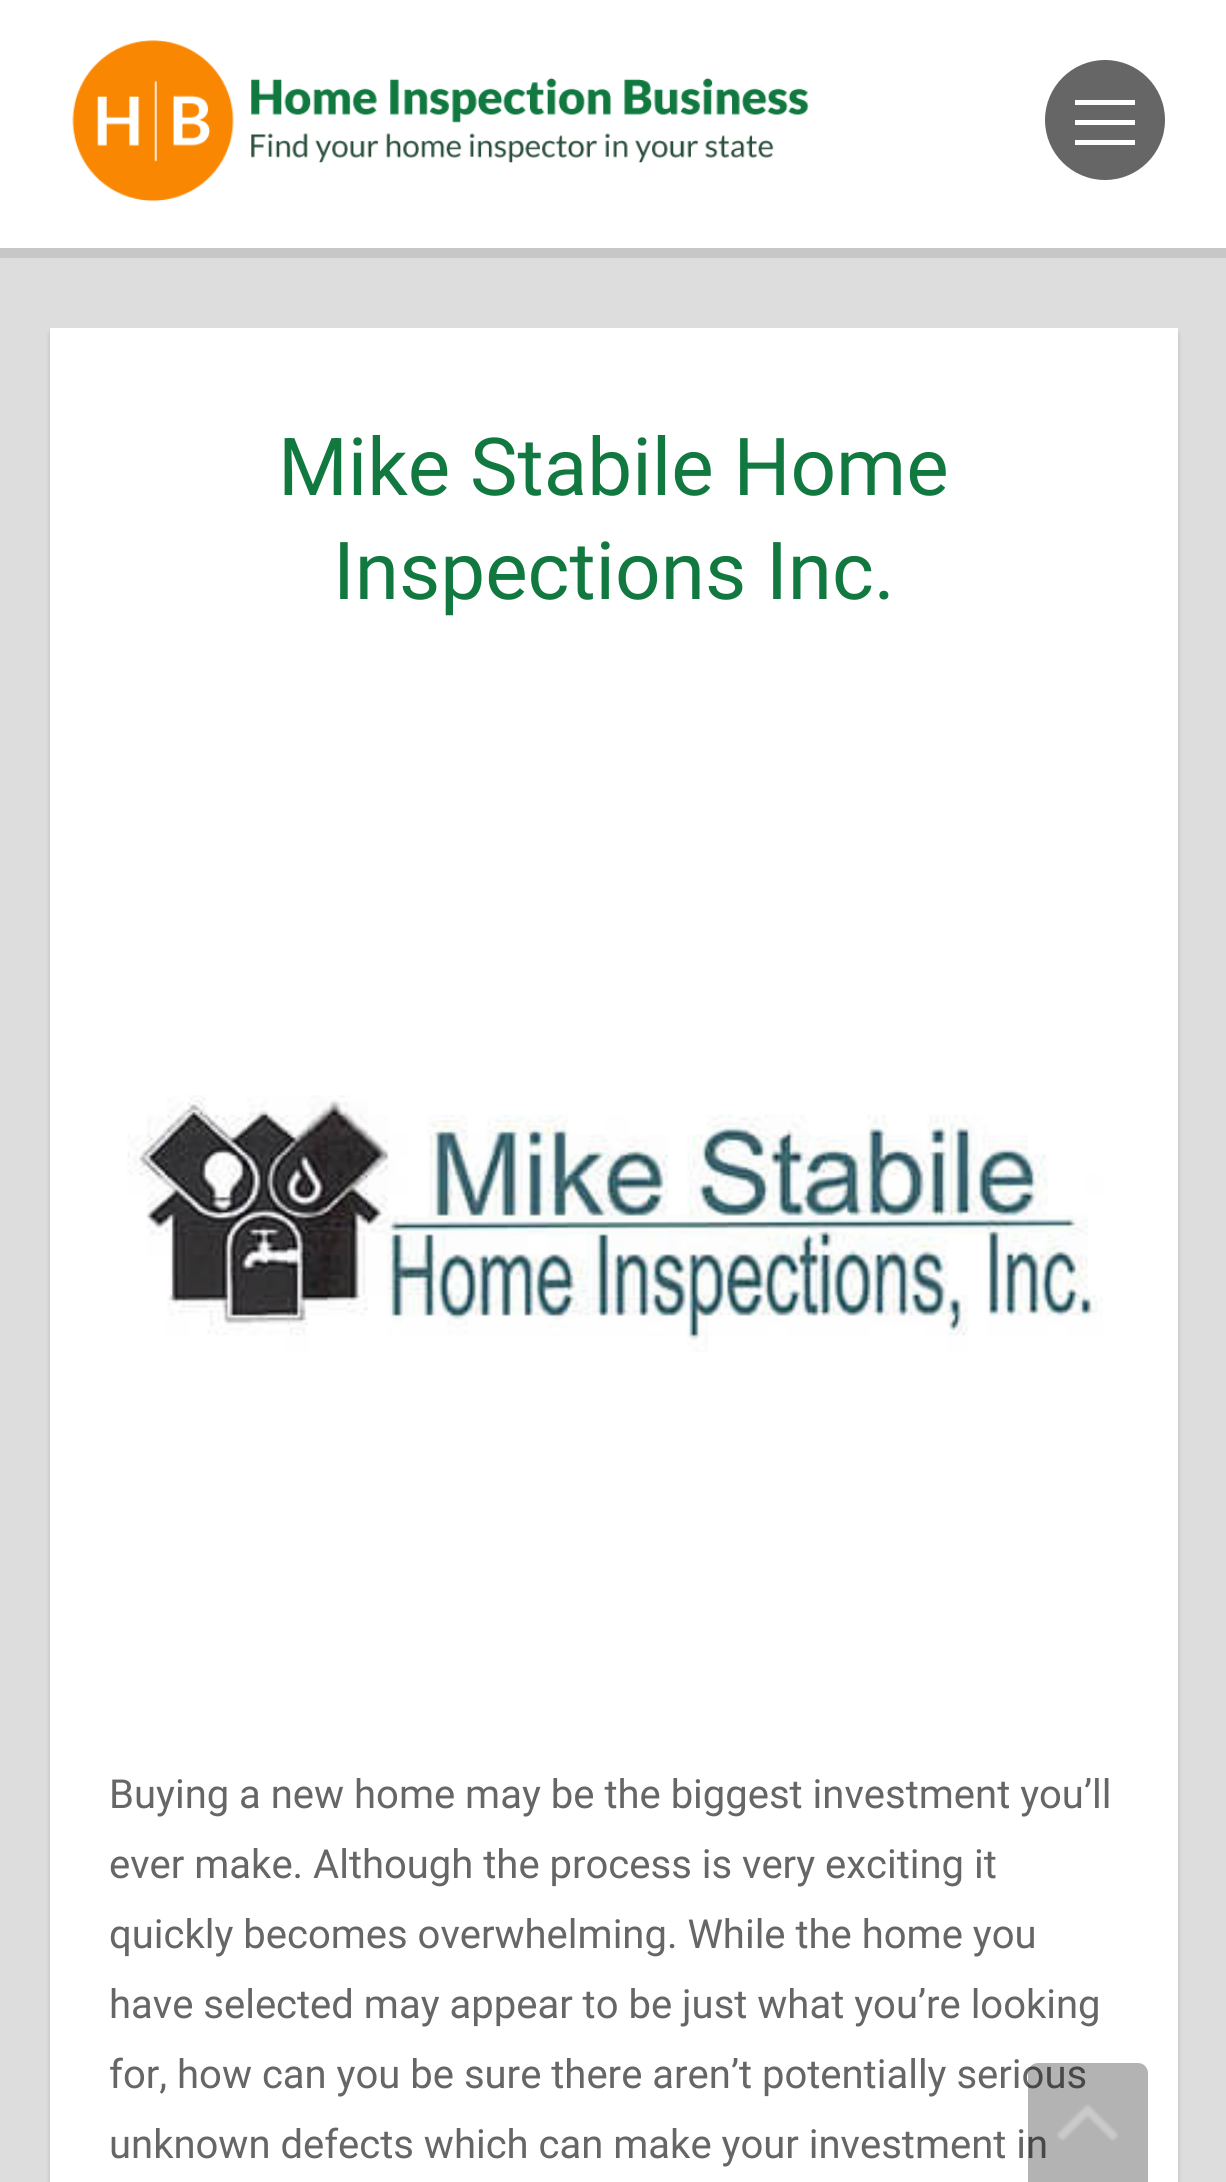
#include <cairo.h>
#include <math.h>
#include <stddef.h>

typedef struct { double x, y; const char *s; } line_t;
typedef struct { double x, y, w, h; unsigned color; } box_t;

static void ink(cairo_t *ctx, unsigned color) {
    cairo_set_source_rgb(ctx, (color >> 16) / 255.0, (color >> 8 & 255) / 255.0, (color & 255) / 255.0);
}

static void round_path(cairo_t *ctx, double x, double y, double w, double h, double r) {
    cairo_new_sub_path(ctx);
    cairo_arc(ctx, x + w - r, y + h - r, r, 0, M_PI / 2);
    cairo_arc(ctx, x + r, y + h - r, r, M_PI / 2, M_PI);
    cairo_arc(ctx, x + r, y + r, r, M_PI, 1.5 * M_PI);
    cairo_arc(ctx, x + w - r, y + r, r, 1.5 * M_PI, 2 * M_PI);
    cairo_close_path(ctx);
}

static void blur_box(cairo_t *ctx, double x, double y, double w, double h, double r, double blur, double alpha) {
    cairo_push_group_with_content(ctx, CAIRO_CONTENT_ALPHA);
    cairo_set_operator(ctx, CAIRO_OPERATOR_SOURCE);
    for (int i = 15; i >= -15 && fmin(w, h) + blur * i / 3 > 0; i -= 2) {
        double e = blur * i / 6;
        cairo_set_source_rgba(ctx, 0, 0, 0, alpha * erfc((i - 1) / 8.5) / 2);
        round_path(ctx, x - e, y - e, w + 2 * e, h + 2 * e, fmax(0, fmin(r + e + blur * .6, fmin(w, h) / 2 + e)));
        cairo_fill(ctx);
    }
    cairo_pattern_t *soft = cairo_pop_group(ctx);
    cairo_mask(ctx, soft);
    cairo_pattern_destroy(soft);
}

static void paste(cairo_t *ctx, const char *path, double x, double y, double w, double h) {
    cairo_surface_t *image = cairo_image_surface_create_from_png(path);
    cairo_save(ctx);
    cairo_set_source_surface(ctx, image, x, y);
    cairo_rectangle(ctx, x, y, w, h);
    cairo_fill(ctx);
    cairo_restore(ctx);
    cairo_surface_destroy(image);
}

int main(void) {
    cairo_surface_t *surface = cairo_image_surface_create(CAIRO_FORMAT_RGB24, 1226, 2182);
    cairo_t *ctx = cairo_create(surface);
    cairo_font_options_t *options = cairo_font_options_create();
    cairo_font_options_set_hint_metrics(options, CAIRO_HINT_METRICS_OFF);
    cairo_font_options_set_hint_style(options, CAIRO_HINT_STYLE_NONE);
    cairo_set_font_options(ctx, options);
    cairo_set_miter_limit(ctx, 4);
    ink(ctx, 0xDDDDDD);
    cairo_paint(ctx);
    ink(ctx, 0xC7C7C7);
    cairo_new_path(ctx);
    cairo_move_to(ctx, 0, 248);
    cairo_line_to(ctx, 0, 258);
    cairo_line_to(ctx, 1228, 258);
    cairo_line_to(ctx, 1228, 10);
    cairo_line_to(ctx, 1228, 248);
    cairo_close_path(ctx);
    cairo_fill(ctx);
    ink(ctx, 0xFFFFFF);
    cairo_rectangle(ctx, 0, 0, 1226, 248);
    cairo_fill(ctx);
    paste(ctx, "media/1.png", 72, 40, 737, 162);
    ink(ctx, 0x666666);
    cairo_arc(ctx, 1105, 120, 60, 0, 2 * M_PI);
    cairo_fill(ctx);
    {
        static const box_t items[] = {
            {1075, 120, 60, 5, 0xFFFFFF},
            {1075, 100, 60, 5, 0xFFFFFF},
            {1075, 140, 60, 5, 0xFFFFFF},
        };
        for (size_t i = 0; i < sizeof items / sizeof *items; i++) {
            ink(ctx, items[i].color);
            cairo_rectangle(ctx, items[i].x, items[i].y, items[i].w, items[i].h);
            cairo_fill(ctx);
        }
    }
    ink(ctx, 0x000000);
    blur_box(ctx, 50, 333, 1128, 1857, 0, 2.5, 0.15);
    ink(ctx, 0xFFFFFF);
    cairo_rectangle(ctx, 50, 328, 1128, 1854);
    cairo_fill(ctx);
    cairo_select_font_face(ctx, "Roboto", CAIRO_FONT_SLANT_NORMAL, CAIRO_FONT_WEIGHT_NORMAL);
    cairo_set_font_size(ctx, 80);
    ink(ctx, 0x117840);
    cairo_move_to(ctx, 278, 495);
    cairo_show_text(ctx, "Mike Stabile Home");
    cairo_move_to(ctx, 333, 599);
    cairo_show_text(ctx, "Inspections Inc.");
    paste(ctx, "media/2.png", 127, 1095, 976, 257);
    cairo_set_font_size(ctx, 40);
    ink(ctx, 0x666666);
    {
        static const line_t items[] = {
            {109, 1808, "Buying a new home may be the biggest investment you’ll"},
            {109, 1878, "ever make. Although the process is very exciting it"},
            {109, 1948, "quickly becomes overwhelming. While the home you"},
            {109, 2018, "have selected may appear to be just what you’re looking"},
            {109, 2088, "for, how can you be sure there aren’t potentially serious"},
            {109, 2158, "unknown defects which can make your investment in"},
        };
        for (size_t i = 0; i < sizeof items / sizeof *items; i++) {
            cairo_move_to(ctx, items[i].x, items[i].y);
            cairo_show_text(ctx, items[i].s);
        }
    }
    cairo_set_source_rgba(ctx, 0, 0, 0, 0.3);
    cairo_new_path(ctx);
    cairo_move_to(ctx, 1038, 2063);
    cairo_line_to(ctx, 1138, 2063);
    cairo_curve_to(ctx, 1143.5, 2063, 1148, 2067.5, 1148, 2073);
    cairo_line_to(ctx, 1148, 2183);
    cairo_line_to(ctx, 1028, 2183);
    cairo_line_to(ctx, 1028, 2073);
    cairo_curve_to(ctx, 1028, 2067.5, 1032.5, 2063, 1038, 2063);
    cairo_close_path(ctx);
    cairo_fill(ctx);
    paste(ctx, "media/3.png", 1057, 2104, 61, 37);
    cairo_surface_write_to_png(surface, "image.png");
    cairo_font_options_destroy(options);
    cairo_destroy(ctx);
    cairo_surface_destroy(surface);
    return 0;
}
